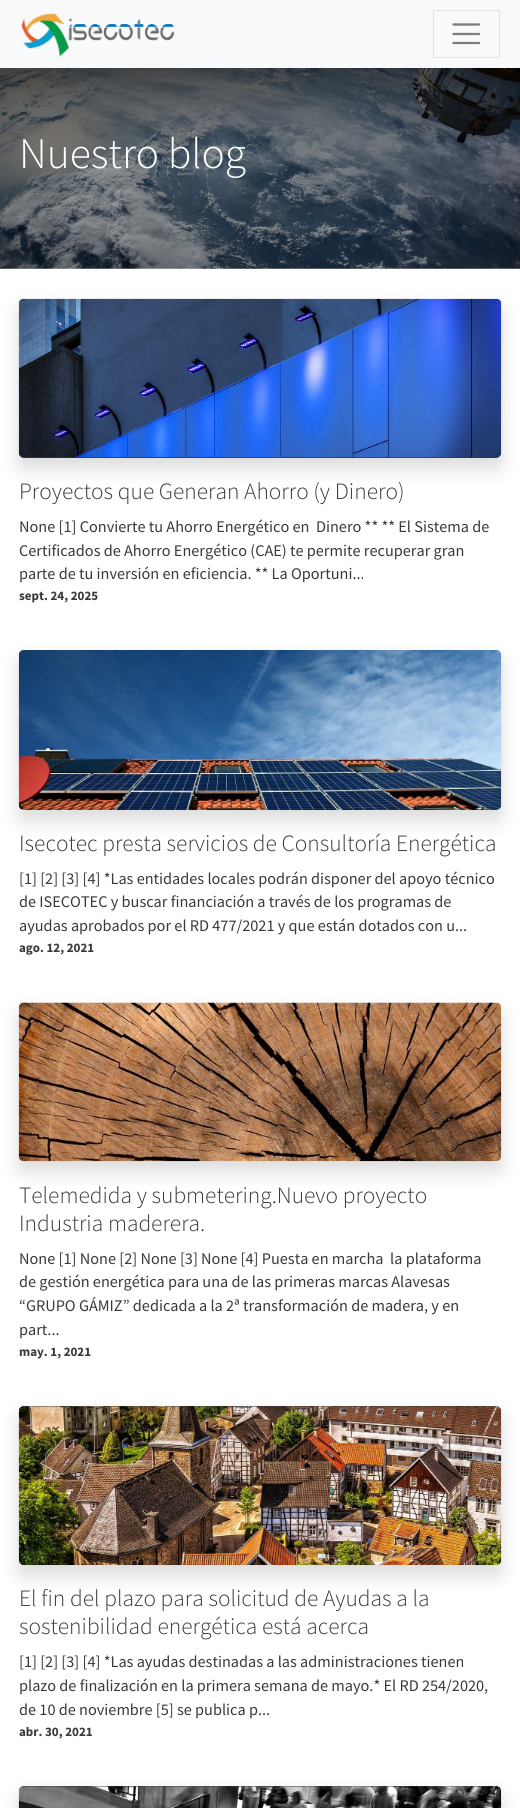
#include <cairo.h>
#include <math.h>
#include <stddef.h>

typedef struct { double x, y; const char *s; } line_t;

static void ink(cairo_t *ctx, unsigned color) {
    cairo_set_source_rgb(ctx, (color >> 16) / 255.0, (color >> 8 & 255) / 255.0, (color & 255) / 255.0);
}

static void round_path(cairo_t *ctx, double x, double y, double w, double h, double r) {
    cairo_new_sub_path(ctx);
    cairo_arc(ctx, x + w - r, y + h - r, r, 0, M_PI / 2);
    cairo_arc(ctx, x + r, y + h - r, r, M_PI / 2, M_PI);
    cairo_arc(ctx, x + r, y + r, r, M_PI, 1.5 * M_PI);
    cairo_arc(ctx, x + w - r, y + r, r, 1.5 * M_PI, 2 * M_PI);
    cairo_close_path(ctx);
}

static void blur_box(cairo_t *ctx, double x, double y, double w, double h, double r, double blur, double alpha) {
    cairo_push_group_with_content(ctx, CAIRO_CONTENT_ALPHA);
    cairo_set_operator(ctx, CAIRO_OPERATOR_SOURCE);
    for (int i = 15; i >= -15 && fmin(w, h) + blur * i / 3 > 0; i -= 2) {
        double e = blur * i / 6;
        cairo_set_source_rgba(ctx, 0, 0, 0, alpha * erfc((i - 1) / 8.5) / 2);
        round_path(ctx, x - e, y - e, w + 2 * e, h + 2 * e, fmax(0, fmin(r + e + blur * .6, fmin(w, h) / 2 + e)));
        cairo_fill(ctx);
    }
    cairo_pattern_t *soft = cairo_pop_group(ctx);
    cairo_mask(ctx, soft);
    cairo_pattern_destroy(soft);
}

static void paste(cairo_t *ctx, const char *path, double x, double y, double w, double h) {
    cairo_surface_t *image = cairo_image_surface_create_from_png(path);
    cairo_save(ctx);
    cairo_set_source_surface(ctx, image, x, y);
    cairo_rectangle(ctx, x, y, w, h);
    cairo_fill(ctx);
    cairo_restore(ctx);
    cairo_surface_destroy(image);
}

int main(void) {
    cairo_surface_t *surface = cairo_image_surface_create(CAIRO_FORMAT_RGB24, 520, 1808);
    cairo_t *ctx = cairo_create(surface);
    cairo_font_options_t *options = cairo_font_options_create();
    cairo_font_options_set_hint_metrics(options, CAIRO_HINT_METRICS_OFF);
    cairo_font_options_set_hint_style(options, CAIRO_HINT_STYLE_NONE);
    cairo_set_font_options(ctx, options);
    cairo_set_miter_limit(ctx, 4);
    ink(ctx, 0xFFFFFF);
    cairo_paint(ctx);
    ink(ctx, 0xF8F9FA);
    cairo_rectangle(ctx, 0, 0, 520, 68);
    cairo_fill(ctx);
    paste(ctx, "media/1.png", 21, 13, 154, 44);
    cairo_rectangle(ctx, 433.5, 10.5, 66, 47);
    ink(ctx, 0xDFE0E1);
    cairo_set_line_width(ctx, 1);
    cairo_stroke(ctx);
    cairo_new_path(ctx);
    cairo_move_to(ctx, 453.5, 24.5);
    cairo_line_to(ctx, 479, 24.5);
    cairo_move_to(ctx, 453.5, 34);
    cairo_line_to(ctx, 479, 34);
    cairo_move_to(ctx, 453.5, 43);
    cairo_line_to(ctx, 479, 43);
    ink(ctx, 0x7C7D7D);
    cairo_set_line_width(ctx, 2.3);
    cairo_set_line_cap(ctx, CAIRO_LINE_CAP_ROUND);
    cairo_stroke(ctx);
    paste(ctx, "media/2.png", 0, 68, 520, 201);
    cairo_select_font_face(ctx, "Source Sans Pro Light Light", CAIRO_FONT_SLANT_NORMAL, CAIRO_FONT_WEIGHT_NORMAL);
    cairo_set_font_size(ctx, 43.5);
    ink(ctx, 0xFFFFFF);
    cairo_move_to(ctx, 19, 168);
    cairo_show_text(ctx, "Nuestro blog");
    ink(ctx, 0x000000);
    blur_box(ctx, 19, 309, 482, 159, 5, 10, 0.15);
    ink(ctx, 0x373A3C);
    round_path(ctx, 19, 299, 482, 159, 5);
    cairo_fill(ctx);
    paste(ctx, "media/3.png", 18, 298, 484, 160);
    cairo_set_font_size(ctx, 23.4);
    cairo_move_to(ctx, 19, 499);
    cairo_show_text(ctx, "Proyectos que Generan Ahorro (y Dinero)");
    cairo_select_font_face(ctx, "Source Sans Pro", CAIRO_FONT_SLANT_NORMAL, CAIRO_FONT_WEIGHT_NORMAL);
    cairo_set_font_size(ctx, 16.25);
    {
        static const line_t items[] = {
            {19, 532, "None [1] Convierte tu Ahorro Energético en  Dinero ** ** El Sistema de"},
            {19, 556, "Certificados de Ahorro Energético (CAE) te permite recuperar gran"},
            {19, 579, "parte de tu inversión en eficiencia. ** La Oportuni..."},
        };
        for (size_t i = 0; i < sizeof items / sizeof *items; i++) {
            cairo_move_to(ctx, items[i].x, items[i].y);
            cairo_show_text(ctx, items[i].s);
        }
    }
    cairo_select_font_face(ctx, "Source Sans Pro", CAIRO_FONT_SLANT_NORMAL, CAIRO_FONT_WEIGHT_BOLD);
    cairo_set_font_size(ctx, 13);
    cairo_move_to(ctx, 19, 600);
    cairo_show_text(ctx, "sept. 24, 2025");
    ink(ctx, 0x000000);
    blur_box(ctx, 19, 660, 482, 160, 5, 10, 0.15);
    paste(ctx, "media/4.png", 18, 650, 484, 160);
    cairo_select_font_face(ctx, "Source Sans Pro Light Light", CAIRO_FONT_SLANT_NORMAL, CAIRO_FONT_WEIGHT_NORMAL);
    cairo_set_font_size(ctx, 23.4);
    ink(ctx, 0x373A3C);
    cairo_move_to(ctx, 19, 851);
    cairo_show_text(ctx, "Isecotec presta servicios de Consultoría Energética");
    cairo_select_font_face(ctx, "Source Sans Pro", CAIRO_FONT_SLANT_NORMAL, CAIRO_FONT_WEIGHT_NORMAL);
    cairo_set_font_size(ctx, 16.25);
    {
        static const line_t items[] = {
            {19, 884, "[1] [2] [3] [4] *Las entidades locales podrán disponer del apoyo técnico"},
            {19, 907, "de ISECOTEC y buscar financiación a través de los programas de"},
            {19, 931, "ayudas aprobados por el RD 477/2021 y que están dotados con u..."},
        };
        for (size_t i = 0; i < sizeof items / sizeof *items; i++) {
            cairo_move_to(ctx, items[i].x, items[i].y);
            cairo_show_text(ctx, items[i].s);
        }
    }
    cairo_select_font_face(ctx, "Source Sans Pro", CAIRO_FONT_SLANT_NORMAL, CAIRO_FONT_WEIGHT_BOLD);
    cairo_set_font_size(ctx, 13);
    cairo_move_to(ctx, 19, 952);
    cairo_show_text(ctx, "ago. 12, 2021");
    ink(ctx, 0x000000);
    blur_box(ctx, 19, 1013, 482, 158, 5, 10, 0.15);
    paste(ctx, "media/5.png", 18, 1002, 484, 160);
    cairo_select_font_face(ctx, "Source Sans Pro Light Light", CAIRO_FONT_SLANT_NORMAL, CAIRO_FONT_WEIGHT_NORMAL);
    cairo_set_font_size(ctx, 23.4);
    ink(ctx, 0x373A3C);
    cairo_move_to(ctx, 19, 1203);
    cairo_show_text(ctx, "Telemedida y submetering.Nuevo proyecto");
    cairo_move_to(ctx, 19, 1231);
    cairo_show_text(ctx, "Industria maderera.");
    cairo_select_font_face(ctx, "Source Sans Pro", CAIRO_FONT_SLANT_NORMAL, CAIRO_FONT_WEIGHT_NORMAL);
    cairo_set_font_size(ctx, 16.25);
    {
        static const line_t items[] = {
            {19, 1264, "None [1] None [2] None [3] None [4] Puesta en marcha  la plataforma"},
            {19, 1287, "de gestión energética para una de las primeras marcas Alavesas"},
            {19, 1311, "“GRUPO GÁMIZ” dedicada a la 2ª transformación de madera, y en"},
            {19, 1335, "part..."},
        };
        for (size_t i = 0; i < sizeof items / sizeof *items; i++) {
            cairo_move_to(ctx, items[i].x, items[i].y);
            cairo_show_text(ctx, items[i].s);
        }
    }
    cairo_select_font_face(ctx, "Source Sans Pro", CAIRO_FONT_SLANT_NORMAL, CAIRO_FONT_WEIGHT_BOLD);
    cairo_set_font_size(ctx, 13);
    cairo_move_to(ctx, 19, 1356);
    cairo_show_text(ctx, "may. 1, 2021");
    ink(ctx, 0x000000);
    blur_box(ctx, 19, 1416, 482, 159, 5, 10, 0.15);
    ink(ctx, 0x373A3C);
    round_path(ctx, 19, 1406, 482, 159, 5);
    cairo_fill(ctx);
    paste(ctx, "media/6.png", 18, 1406, 484, 159);
    cairo_select_font_face(ctx, "Source Sans Pro Light Light", CAIRO_FONT_SLANT_NORMAL, CAIRO_FONT_WEIGHT_NORMAL);
    cairo_set_font_size(ctx, 23.4);
    cairo_move_to(ctx, 19, 1606);
    cairo_show_text(ctx, "El fin del plazo para solicitud de Ayudas a la");
    cairo_move_to(ctx, 19, 1634);
    cairo_show_text(ctx, "sostenibilidad energética está acerca");
    cairo_select_font_face(ctx, "Source Sans Pro", CAIRO_FONT_SLANT_NORMAL, CAIRO_FONT_WEIGHT_NORMAL);
    cairo_set_font_size(ctx, 16.25);
    {
        static const line_t items[] = {
            {19, 1667, "[1] [2] [3] [4] *Las ayudas destinadas a las administraciones tienen"},
            {19, 1691, "plazo de finalización en la primera semana de mayo.* El RD 254/2020,"},
            {19, 1715, "de 10 de noviembre [5] se publica p..."},
        };
        for (size_t i = 0; i < sizeof items / sizeof *items; i++) {
            cairo_move_to(ctx, items[i].x, items[i].y);
            cairo_show_text(ctx, items[i].s);
        }
    }
    cairo_select_font_face(ctx, "Source Sans Pro", CAIRO_FONT_SLANT_NORMAL, CAIRO_FONT_WEIGHT_BOLD);
    cairo_set_font_size(ctx, 13);
    cairo_move_to(ctx, 19, 1736);
    cairo_show_text(ctx, "abr. 30, 2021");
    ink(ctx, 0x000000);
    blur_box(ctx, 19, 1796, 482, 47, 5, 10, 0.15);
    ink(ctx, 0x373A3C);
    round_path(ctx, 19, 1786, 482, 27, 5);
    cairo_fill(ctx);
    paste(ctx, "media/7.png", 18, 1786, 484, 22);
    cairo_surface_write_to_png(surface, "image.png");
    cairo_font_options_destroy(options);
    cairo_destroy(ctx);
    cairo_surface_destroy(surface);
    return 0;
}
